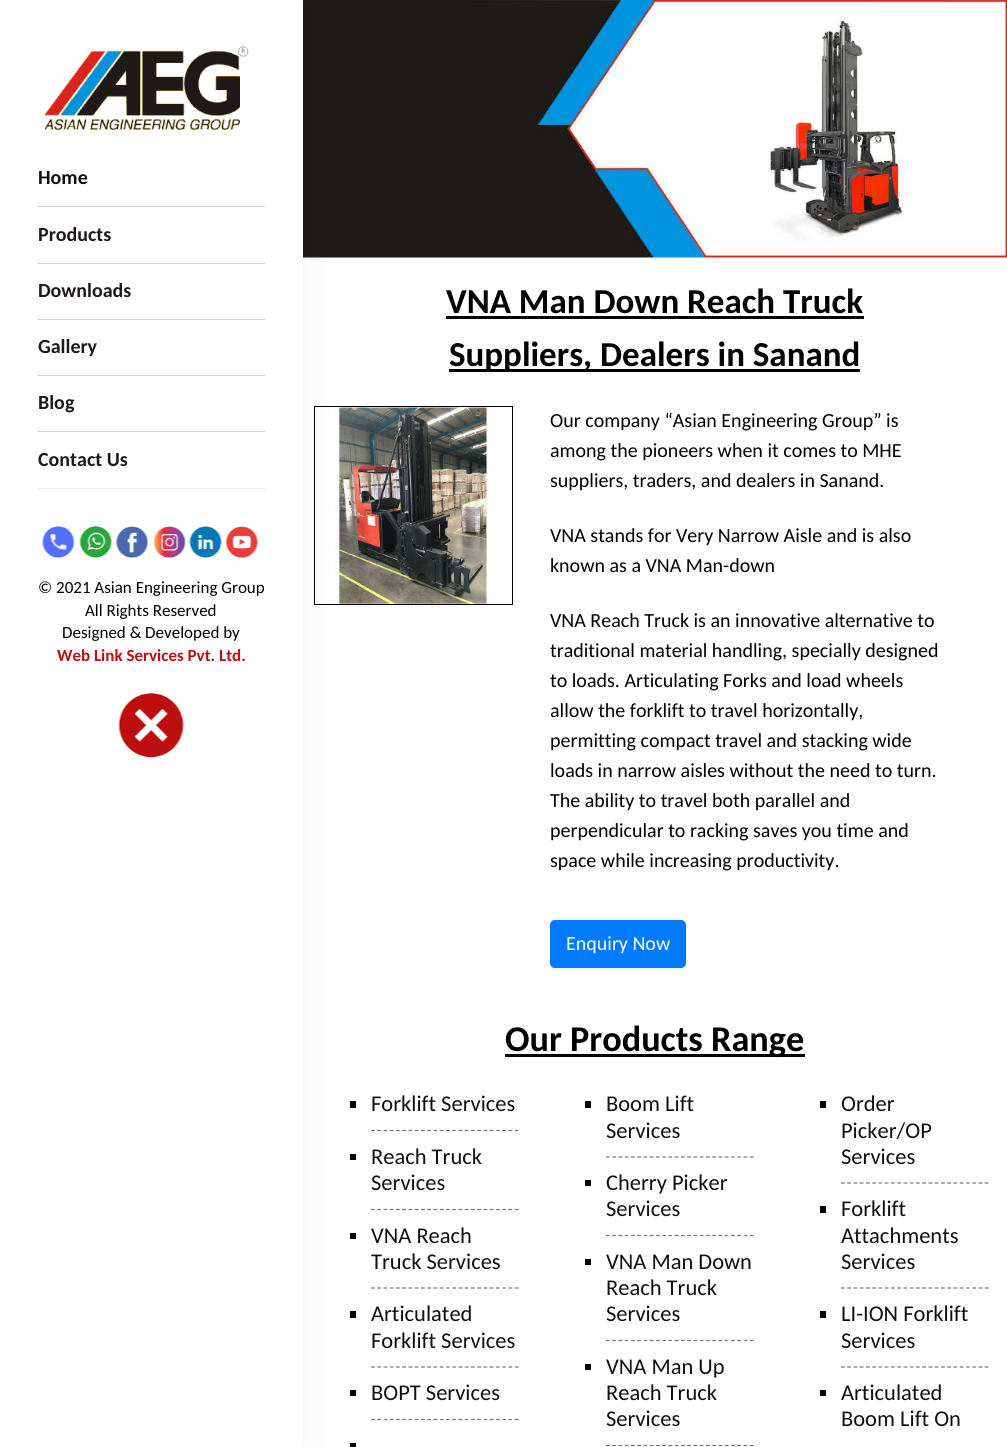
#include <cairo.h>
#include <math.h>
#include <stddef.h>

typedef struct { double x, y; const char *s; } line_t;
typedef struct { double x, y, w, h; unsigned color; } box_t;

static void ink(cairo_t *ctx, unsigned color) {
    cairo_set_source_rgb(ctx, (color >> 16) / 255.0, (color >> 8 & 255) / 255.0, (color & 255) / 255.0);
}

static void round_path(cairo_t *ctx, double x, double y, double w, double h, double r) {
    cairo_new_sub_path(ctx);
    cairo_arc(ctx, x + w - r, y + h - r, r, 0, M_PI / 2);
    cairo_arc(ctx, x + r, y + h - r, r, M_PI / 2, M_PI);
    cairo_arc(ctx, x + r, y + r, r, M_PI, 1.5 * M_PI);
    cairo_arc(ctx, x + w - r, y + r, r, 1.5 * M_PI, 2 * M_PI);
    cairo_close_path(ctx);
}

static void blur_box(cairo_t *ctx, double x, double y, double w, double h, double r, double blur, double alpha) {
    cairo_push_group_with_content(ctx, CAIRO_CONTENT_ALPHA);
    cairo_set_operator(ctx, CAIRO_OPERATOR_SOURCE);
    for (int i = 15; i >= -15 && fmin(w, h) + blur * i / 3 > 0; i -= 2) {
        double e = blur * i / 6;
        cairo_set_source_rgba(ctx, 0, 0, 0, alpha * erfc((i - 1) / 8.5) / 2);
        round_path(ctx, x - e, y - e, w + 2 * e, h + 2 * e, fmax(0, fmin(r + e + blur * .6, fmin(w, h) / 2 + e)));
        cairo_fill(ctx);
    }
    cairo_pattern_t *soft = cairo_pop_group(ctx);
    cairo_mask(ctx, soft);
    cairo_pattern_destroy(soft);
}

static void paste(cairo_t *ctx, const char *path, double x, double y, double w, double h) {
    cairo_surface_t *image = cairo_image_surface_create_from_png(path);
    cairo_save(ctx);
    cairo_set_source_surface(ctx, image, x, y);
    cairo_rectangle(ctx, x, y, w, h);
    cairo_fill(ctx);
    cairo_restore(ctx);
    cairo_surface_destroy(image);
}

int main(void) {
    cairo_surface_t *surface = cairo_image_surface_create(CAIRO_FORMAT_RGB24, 1007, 1447);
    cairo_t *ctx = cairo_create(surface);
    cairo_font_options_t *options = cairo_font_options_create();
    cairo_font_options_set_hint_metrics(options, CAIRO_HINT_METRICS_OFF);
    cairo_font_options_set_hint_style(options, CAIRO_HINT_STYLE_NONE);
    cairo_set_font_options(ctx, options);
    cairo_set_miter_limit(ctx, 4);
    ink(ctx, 0xFFFFFF);
    cairo_paint(ctx);
    paste(ctx, "media/9.png", 303, 0, 704, 258);
    cairo_rectangle(ctx, 314.5, 406.5, 198, 198);
    ink(ctx, 0x000000);
    cairo_set_line_width(ctx, 1);
    cairo_stroke(ctx);
    paste(ctx, "media/10.png", 334, 407, 157, 197);
    {
        static const box_t items[] = {
            {350, 1101, 6, 7, 0x000000},
            {350, 1154, 6, 6, 0x000000},
            {350, 1233, 6, 6, 0x000000},
            {350, 1311, 6, 7, 0x000000},
            {350, 1390, 6, 6, 0x000000},
            {350, 1443, 6, 4, 0x000000},
        };
        for (size_t i = 0; i < sizeof items / sizeof *items; i++) {
            ink(ctx, items[i].color);
            cairo_rectangle(ctx, items[i].x, items[i].y, items[i].w, items[i].h);
            cairo_fill(ctx);
        }
    }
    ink(ctx, 0x000000);
    blur_box(ctx, 0, 0, 303, 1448, 0, 19, 0.05);
    ink(ctx, 0xFFFFFF);
    cairo_rectangle(ctx, 0, 0, 303, 1447);
    cairo_fill(ctx);
    paste(ctx, "media/1.png", 44, 46, 205, 85);
    ink(ctx, 0xCFCFCF);
    cairo_rectangle(ctx, 38, 206, 227, 1);
    cairo_fill(ctx);
    cairo_select_font_face(ctx, "Carlito", CAIRO_FONT_SLANT_NORMAL, CAIRO_FONT_WEIGHT_BOLD);
    cairo_set_font_size(ctx, 20);
    ink(ctx, 0x101010);
    cairo_move_to(ctx, 38, 184);
    cairo_show_text(ctx, "Home");
    ink(ctx, 0xCFCFCF);
    cairo_rectangle(ctx, 38, 263, 227, 1);
    cairo_fill(ctx);
    ink(ctx, 0x1F1A17);
    cairo_move_to(ctx, 38, 241);
    cairo_show_text(ctx, "Products");
    ink(ctx, 0xCFCFCF);
    cairo_rectangle(ctx, 38, 319, 227, 1);
    cairo_fill(ctx);
    ink(ctx, 0x1F1A17);
    cairo_move_to(ctx, 38, 297);
    cairo_show_text(ctx, "Downloads");
    ink(ctx, 0xCFCFCF);
    cairo_rectangle(ctx, 38, 375, 227, 1);
    cairo_fill(ctx);
    ink(ctx, 0x1F1A17);
    cairo_move_to(ctx, 38, 353);
    cairo_show_text(ctx, "Gallery");
    ink(ctx, 0xCFCFCF);
    cairo_rectangle(ctx, 38, 431, 227, 1);
    cairo_fill(ctx);
    ink(ctx, 0x1F1A17);
    cairo_move_to(ctx, 38, 409);
    cairo_show_text(ctx, "Blog");
    ink(ctx, 0xECECEC);
    cairo_rectangle(ctx, 38, 488, 227, 1);
    cairo_fill(ctx);
    ink(ctx, 0x1F1A17);
    cairo_move_to(ctx, 38, 466);
    cairo_show_text(ctx, "Contact Us");
    paste(ctx, "media/2.png", 42, 526, 33, 32);
    paste(ctx, "media/3.png", 79, 526, 33, 32);
    paste(ctx, "media/4.png", 115, 526, 33, 32);
    paste(ctx, "media/5.png", 153, 526, 33, 32);
    paste(ctx, "media/6.png", 189, 526, 33, 32);
    paste(ctx, "media/7.png", 225, 526, 33, 32);
    cairo_select_font_face(ctx, "Carlito", CAIRO_FONT_SLANT_NORMAL, CAIRO_FONT_WEIGHT_NORMAL);
    cairo_set_font_size(ctx, 17);
    ink(ctx, 0x000000);
    {
        static const line_t items[] = {
            {38, 593, "© 2021 Asian Engineering Group"},
            {85, 616, "All Rights Reserved"},
            {62, 638, "Designed & Developed by"},
        };
        for (size_t i = 0; i < sizeof items / sizeof *items; i++) {
            cairo_move_to(ctx, items[i].x, items[i].y);
            cairo_show_text(ctx, items[i].s);
        }
    }
    cairo_select_font_face(ctx, "Carlito", CAIRO_FONT_SLANT_NORMAL, CAIRO_FONT_WEIGHT_BOLD);
    ink(ctx, 0xBD0F10);
    cairo_move_to(ctx, 57, 661);
    cairo_show_text(ctx, "Web Link Services Pvt. Ltd.");
    paste(ctx, "media/8.png", 118, 693, 66, 65);
    cairo_set_font_size(ctx, 35);
    ink(ctx, 0x000000);
    cairo_move_to(ctx, 446, 313);
    cairo_show_text(ctx, "VNA Man Down Reach Truck");
    cairo_rectangle(ctx, 446, 316, 418, 3);
    cairo_fill(ctx);
    cairo_rectangle(ctx, 449, 369, 411, 3);
    cairo_fill(ctx);
    cairo_move_to(ctx, 449, 366);
    cairo_show_text(ctx, "Suppliers, Dealers in Sanand");
    cairo_select_font_face(ctx, "Carlito", CAIRO_FONT_SLANT_NORMAL, CAIRO_FONT_WEIGHT_NORMAL);
    cairo_set_font_size(ctx, 20);
    {
        static const line_t items[] = {
            {550, 427, "Our company “Asian Engineering Group” is"},
            {550, 457, "among the pioneers when it comes to MHE"},
            {550, 487, "suppliers, traders, and dealers in Sanand."},
            {550, 542, "VNA stands for Very Narrow Aisle and is also"},
            {550, 572, "known as a VNA Man-down"},
            {550, 627, "VNA Reach Truck is an innovative alternative to"},
            {550, 657, "traditional material handling, specially designed"},
            {550, 687, "to loads. Articulating Forks and load wheels"},
            {550, 717, "allow the forklift to travel horizontally,"},
            {550, 747, "permitting compact travel and stacking wide"},
            {550, 777, "loads in narrow aisles without the need to turn."},
            {550, 807, "The ability to travel both parallel and"},
            {550, 837, "perpendicular to racking saves you time and"},
            {550, 867, "space while increasing productivity."},
        };
        for (size_t i = 0; i < sizeof items / sizeof *items; i++) {
            cairo_move_to(ctx, items[i].x, items[i].y);
            cairo_show_text(ctx, items[i].s);
        }
    }
    ink(ctx, 0x007BFF);
    round_path(ctx, 550.5, 920.5, 135, 47, 4.5);
    cairo_fill_preserve(ctx);
    cairo_stroke(ctx);
    ink(ctx, 0xFFFFFF);
    cairo_move_to(ctx, 566, 950);
    cairo_show_text(ctx, "Enquiry Now");
    ink(ctx, 0x000000);
    cairo_rectangle(ctx, 505, 1054, 300, 3);
    cairo_fill(ctx);
    cairo_select_font_face(ctx, "Carlito", CAIRO_FONT_SLANT_NORMAL, CAIRO_FONT_WEIGHT_BOLD);
    cairo_set_font_size(ctx, 36.25);
    cairo_move_to(ctx, 505, 1051);
    cairo_show_text(ctx, "Our Products Range");
    cairo_select_font_face(ctx, "Carlito", CAIRO_FONT_SLANT_NORMAL, CAIRO_FONT_WEIGHT_NORMAL);
    cairo_set_font_size(ctx, 22.5);
    ink(ctx, 0x101010);
    cairo_move_to(ctx, 371, 1111);
    cairo_show_text(ctx, "Forklift Services");
    cairo_new_path(ctx);
    cairo_move_to(ctx, 371, 1130.5);
    cairo_line_to(ctx, 519, 1130.5);
    ink(ctx, 0x777777);
    cairo_set_line_width(ctx, 1.2);
    cairo_set_dash(ctx, (double[]){3.75, 2.5}, 2, 0);
    cairo_stroke(ctx);
    ink(ctx, 0x101010);
    cairo_move_to(ctx, 371, 1164);
    cairo_show_text(ctx, "Reach Truck");
    cairo_move_to(ctx, 371, 1190);
    cairo_show_text(ctx, "Services");
    cairo_new_path(ctx);
    cairo_move_to(ctx, 371, 1209.5);
    cairo_line_to(ctx, 519, 1209.5);
    ink(ctx, 0x777777);
    cairo_stroke(ctx);
    ink(ctx, 0x101010);
    cairo_move_to(ctx, 371, 1243);
    cairo_show_text(ctx, "VNA Reach");
    cairo_move_to(ctx, 371, 1269);
    cairo_show_text(ctx, "Truck Services");
    cairo_new_path(ctx);
    cairo_move_to(ctx, 371, 1288);
    cairo_line_to(ctx, 519, 1288);
    ink(ctx, 0x777777);
    cairo_stroke(ctx);
    ink(ctx, 0x101010);
    cairo_move_to(ctx, 371, 1321);
    cairo_show_text(ctx, "Articulated");
    cairo_move_to(ctx, 371, 1348);
    cairo_show_text(ctx, "Forklift Services");
    cairo_new_path(ctx);
    cairo_move_to(ctx, 371, 1367);
    cairo_line_to(ctx, 519, 1367);
    ink(ctx, 0x777777);
    cairo_stroke(ctx);
    ink(ctx, 0x101010);
    cairo_move_to(ctx, 371, 1400);
    cairo_show_text(ctx, "BOPT Services");
    cairo_new_path(ctx);
    cairo_move_to(ctx, 371, 1419.5);
    cairo_line_to(ctx, 519, 1419.5);
    ink(ctx, 0x777777);
    cairo_stroke(ctx);
    ink(ctx, 0x000000);
    cairo_rectangle(ctx, 585, 1101, 6, 7);
    cairo_fill(ctx);
    ink(ctx, 0x101010);
    cairo_move_to(ctx, 606, 1111);
    cairo_show_text(ctx, "Boom Lift");
    cairo_move_to(ctx, 606, 1138);
    cairo_show_text(ctx, "Services");
    cairo_new_path(ctx);
    cairo_move_to(ctx, 606, 1157);
    cairo_line_to(ctx, 754, 1157);
    ink(ctx, 0x777777);
    cairo_stroke(ctx);
    ink(ctx, 0x000000);
    cairo_rectangle(ctx, 585, 1180, 6, 6);
    cairo_fill(ctx);
    ink(ctx, 0x101010);
    cairo_move_to(ctx, 606, 1190);
    cairo_show_text(ctx, "Cherry Picker");
    cairo_move_to(ctx, 606, 1216);
    cairo_show_text(ctx, "Services");
    cairo_new_path(ctx);
    cairo_move_to(ctx, 606, 1235.5);
    cairo_line_to(ctx, 754, 1235.5);
    ink(ctx, 0x777777);
    cairo_stroke(ctx);
    ink(ctx, 0x000000);
    cairo_rectangle(ctx, 585, 1259, 6, 6);
    cairo_fill(ctx);
    ink(ctx, 0x101010);
    {
        static const line_t items[] = {
            {606, 1269, "VNA Man Down"},
            {606, 1295, "Reach Truck"},
            {606, 1321, "Services"},
        };
        for (size_t i = 0; i < sizeof items / sizeof *items; i++) {
            cairo_move_to(ctx, items[i].x, items[i].y);
            cairo_show_text(ctx, items[i].s);
        }
    }
    cairo_new_path(ctx);
    cairo_move_to(ctx, 606, 1340.5);
    cairo_line_to(ctx, 754, 1340.5);
    ink(ctx, 0x777777);
    cairo_stroke(ctx);
    ink(ctx, 0x000000);
    cairo_rectangle(ctx, 585, 1364, 6, 6);
    cairo_fill(ctx);
    ink(ctx, 0x101010);
    {
        static const line_t items[] = {
            {606, 1374, "VNA Man Up"},
            {606, 1400, "Reach Truck"},
            {606, 1426, "Services"},
        };
        for (size_t i = 0; i < sizeof items / sizeof *items; i++) {
            cairo_move_to(ctx, items[i].x, items[i].y);
            cairo_show_text(ctx, items[i].s);
        }
    }
    cairo_new_path(ctx);
    cairo_move_to(ctx, 606, 1445.5);
    cairo_line_to(ctx, 754, 1445.5);
    ink(ctx, 0x777777);
    cairo_stroke(ctx);
    ink(ctx, 0x000000);
    cairo_rectangle(ctx, 820, 1101, 6, 7);
    cairo_fill(ctx);
    ink(ctx, 0x101010);
    {
        static const line_t items[] = {
            {841, 1111, "Order"},
            {841, 1138, "Picker/OP"},
            {841, 1164, "Services"},
        };
        for (size_t i = 0; i < sizeof items / sizeof *items; i++) {
            cairo_move_to(ctx, items[i].x, items[i].y);
            cairo_show_text(ctx, items[i].s);
        }
    }
    cairo_new_path(ctx);
    cairo_move_to(ctx, 841, 1183);
    cairo_line_to(ctx, 989, 1183);
    ink(ctx, 0x777777);
    cairo_stroke(ctx);
    ink(ctx, 0x000000);
    cairo_rectangle(ctx, 820, 1206, 6, 7);
    cairo_fill(ctx);
    ink(ctx, 0x101010);
    {
        static const line_t items[] = {
            {841, 1216, "Forklift"},
            {841, 1243, "Attachments"},
            {841, 1269, "Services"},
        };
        for (size_t i = 0; i < sizeof items / sizeof *items; i++) {
            cairo_move_to(ctx, items[i].x, items[i].y);
            cairo_show_text(ctx, items[i].s);
        }
    }
    cairo_new_path(ctx);
    cairo_move_to(ctx, 841, 1288);
    cairo_line_to(ctx, 989, 1288);
    ink(ctx, 0x777777);
    cairo_stroke(ctx);
    ink(ctx, 0x000000);
    cairo_rectangle(ctx, 820, 1311, 6, 7);
    cairo_fill(ctx);
    ink(ctx, 0x101010);
    cairo_move_to(ctx, 841, 1321);
    cairo_show_text(ctx, "LI-ION Forklift");
    cairo_move_to(ctx, 841, 1348);
    cairo_show_text(ctx, "Services");
    cairo_new_path(ctx);
    cairo_move_to(ctx, 841, 1367);
    cairo_line_to(ctx, 989, 1367);
    ink(ctx, 0x777777);
    cairo_stroke(ctx);
    ink(ctx, 0x000000);
    cairo_rectangle(ctx, 820, 1390, 6, 6);
    cairo_fill(ctx);
    ink(ctx, 0x101010);
    cairo_move_to(ctx, 841, 1400);
    cairo_show_text(ctx, "Articulated");
    cairo_move_to(ctx, 841, 1426);
    cairo_show_text(ctx, "Boom Lift On");
    cairo_surface_write_to_png(surface, "image.png");
    cairo_font_options_destroy(options);
    cairo_destroy(ctx);
    cairo_surface_destroy(surface);
    return 0;
}
